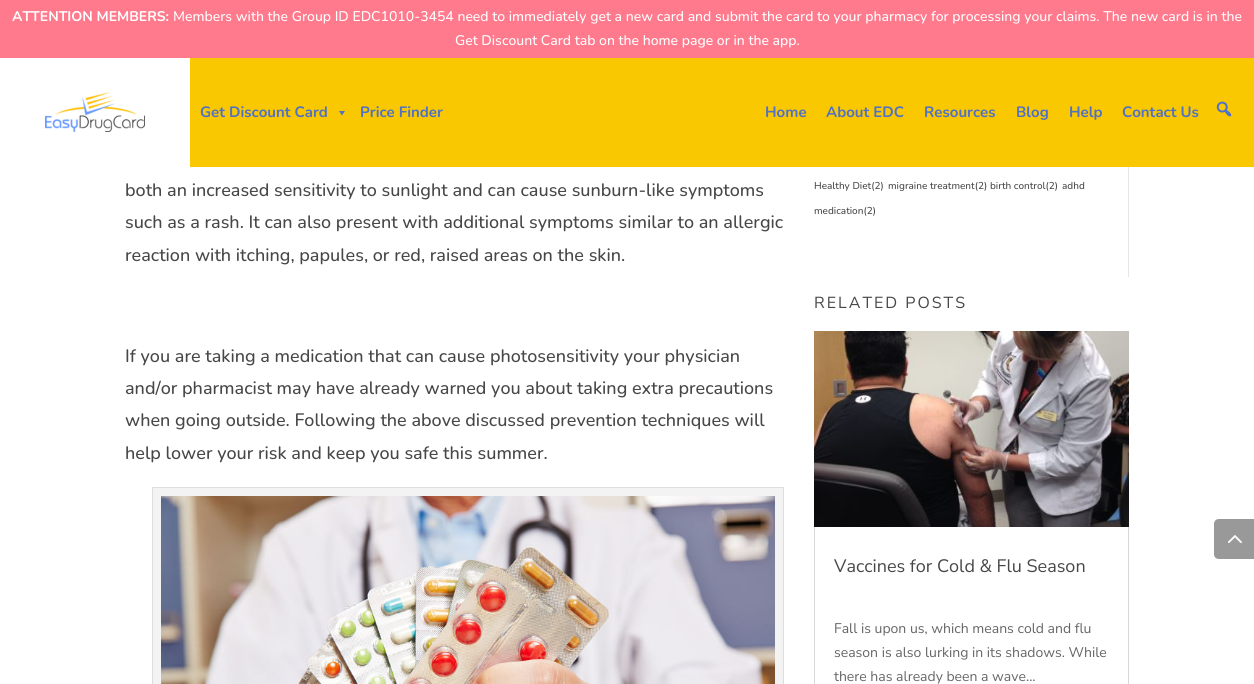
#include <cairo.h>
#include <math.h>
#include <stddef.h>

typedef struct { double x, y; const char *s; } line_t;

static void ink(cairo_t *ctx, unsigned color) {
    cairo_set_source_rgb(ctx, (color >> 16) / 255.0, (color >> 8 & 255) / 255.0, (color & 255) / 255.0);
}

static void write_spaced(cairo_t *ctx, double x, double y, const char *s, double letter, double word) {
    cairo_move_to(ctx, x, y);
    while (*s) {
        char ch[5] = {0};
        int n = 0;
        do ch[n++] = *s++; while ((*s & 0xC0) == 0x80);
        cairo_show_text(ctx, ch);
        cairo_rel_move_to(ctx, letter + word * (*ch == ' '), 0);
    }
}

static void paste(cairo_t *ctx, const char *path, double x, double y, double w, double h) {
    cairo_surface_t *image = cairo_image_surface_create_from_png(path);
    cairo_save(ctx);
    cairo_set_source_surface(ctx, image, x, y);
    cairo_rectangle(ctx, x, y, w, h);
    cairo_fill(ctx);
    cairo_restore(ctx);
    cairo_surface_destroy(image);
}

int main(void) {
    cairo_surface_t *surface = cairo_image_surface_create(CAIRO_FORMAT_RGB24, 1254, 684);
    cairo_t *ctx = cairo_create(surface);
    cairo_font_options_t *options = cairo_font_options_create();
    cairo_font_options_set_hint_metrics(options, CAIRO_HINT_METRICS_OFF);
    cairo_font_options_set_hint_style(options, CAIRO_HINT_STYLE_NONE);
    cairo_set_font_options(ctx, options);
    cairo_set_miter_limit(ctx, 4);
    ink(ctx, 0xFFFFFF);
    cairo_paint(ctx);
    ink(ctx, 0xFF7A8C);
    cairo_rectangle(ctx, 0, 0, 1254, 58);
    cairo_fill(ctx);
    cairo_select_font_face(ctx, "Nunito", CAIRO_FONT_SLANT_NORMAL, CAIRO_FONT_WEIGHT_BOLD);
    cairo_set_font_size(ctx, 14);
    ink(ctx, 0xFFFFFF);
    cairo_move_to(ctx, 12, 21);
    cairo_show_text(ctx, "ATTENTION MEMBERS:");
    cairo_select_font_face(ctx, "Nunito Medium", CAIRO_FONT_SLANT_NORMAL, CAIRO_FONT_WEIGHT_NORMAL);
    cairo_move_to(ctx, 173, 21);
    cairo_show_text(ctx, "Members with the Group ID EDC1010-3454 need to immediately get a new card and submit the card to your pharmacy for processing your claims. The new card is in the");
    cairo_move_to(ctx, 455, 45);
    cairo_show_text(ctx, "Get Discount Card tab on the home page or in the app.");
    ink(ctx, 0xF9C800);
    cairo_rectangle(ctx, 190, 58, 1064, 109);
    cairo_fill(ctx);
    paste(ctx, "media/1.png", 45, 92, 100, 40);
    cairo_select_font_face(ctx, "Nunito", CAIRO_FONT_SLANT_NORMAL, CAIRO_FONT_WEIGHT_BOLD);
    cairo_set_font_size(ctx, 15);
    ink(ctx, 0x5071C5);
    cairo_move_to(ctx, 200, 117);
    cairo_show_text(ctx, "Get Discount Card");
    cairo_new_path(ctx);
    cairo_move_to(ctx, 345, 111);
    cairo_line_to(ctx, 342, 115.5);
    cairo_line_to(ctx, 339, 111);
    cairo_close_path(ctx);
    cairo_fill(ctx);
    {
        static const line_t items[] = {
            {360, 117, "Price Finder"},
            {765, 117, "Home"},
            {826, 117, "About EDC"},
            {924, 117, "Resources"},
            {1016, 117, "Blog"},
            {1069, 117, "Help"},
            {1122, 117, "Contact Us"},
        };
        for (size_t i = 0; i < sizeof items / sizeof *items; i++) {
            cairo_move_to(ctx, items[i].x, items[i].y);
            cairo_show_text(ctx, items[i].s);
        }
    }
    paste(ctx, "media/2.png", 1216, 101, 16, 16);
    cairo_select_font_face(ctx, "Nunito Medium", CAIRO_FONT_SLANT_NORMAL, CAIRO_FONT_WEIGHT_NORMAL);
    cairo_set_font_size(ctx, 18);
    ink(ctx, 0x474747);
    {
        static const line_t items[] = {
            {125, 196, "both an increased sensitivity to sunlight and can cause sunburn-like symptoms"},
            {125, 228, "such as a rash. It can also present with additional symptoms similar to an allergic"},
            {125, 261, "reaction with itching, papules, or red, raised areas on the skin."},
            {125, 362, "If you are taking a medication that can cause photosensitivity your physician"},
            {125, 394, "and/or pharmacist may have already warned you about taking extra precautions"},
            {125, 426, "when going outside. Following the above discussed prevention techniques will"},
            {125, 459, "help lower your risk and keep you safe this summer."},
        };
        for (size_t i = 0; i < sizeof items / sizeof *items; i++) {
            cairo_move_to(ctx, items[i].x, items[i].y);
            cairo_show_text(ctx, items[i].s);
        }
    }
    ink(ctx, 0xF3F3F3);
    cairo_rectangle(ctx, 152.5, 487.5, 631, 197);
    cairo_fill_preserve(ctx);
    ink(ctx, 0xDDDDDD);
    cairo_set_line_width(ctx, 1);
    cairo_stroke(ctx);
    paste(ctx, "media/3.png", 161, 496, 614, 188);
    ink(ctx, 0xE6E6E6);
    cairo_rectangle(ctx, 1128, 167, 1, 110);
    cairo_fill(ctx);
    cairo_set_font_size(ctx, 10);
    ink(ctx, 0x474747);
    {
        static const line_t items[] = {
            {814, 189, "Healthy Diet(2)"},
            {888, 189, "migraine treatment(2)"},
            {990, 189, "birth control(2)"},
            {1062, 189, "adhd"},
            {814, 214, "medication(2)"},
        };
        for (size_t i = 0; i < sizeof items / sizeof *items; i++) {
            cairo_move_to(ctx, items[i].x, items[i].y);
            cairo_show_text(ctx, items[i].s);
        }
    }
    cairo_select_font_face(ctx, "Nunito Sans ExtraLight", CAIRO_FONT_SLANT_NORMAL, CAIRO_FONT_WEIGHT_NORMAL);
    cairo_set_font_size(ctx, 16);
    write_spaced(ctx, 814, 308, "RELATED POSTS", 2, 0);
    cairo_rectangle(ctx, 814.5, 331.5, 314, 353);
    ink(ctx, 0xD8D8D8);
    cairo_stroke(ctx);
    paste(ctx, "media/4.png", 814, 331, 315, 196);
    cairo_set_font_size(ctx, 18);
    ink(ctx, 0x474747);
    cairo_move_to(ctx, 834, 572);
    cairo_show_text(ctx, "Vaccines for Cold & Flu Season");
    cairo_set_font_size(ctx, 14);
    ink(ctx, 0x666666);
    {
        static const line_t items[] = {
            {834, 633, "Fall is upon us, which means cold and flu"},
            {834, 657, "season is also lurking in its shadows. While"},
            {834, 681, "there has already been a wave..."},
        };
        for (size_t i = 0; i < sizeof items / sizeof *items; i++) {
            cairo_move_to(ctx, items[i].x, items[i].y);
            cairo_show_text(ctx, items[i].s);
        }
    }
    ink(ctx, 0x999999);
    cairo_new_path(ctx);
    cairo_move_to(ctx, 1219, 519);
    cairo_line_to(ctx, 1254, 519);
    cairo_line_to(ctx, 1254, 559);
    cairo_line_to(ctx, 1219, 559);
    cairo_curve_to(ctx, 1216, 559, 1214, 557, 1214, 554);
    cairo_line_to(ctx, 1214, 524);
    cairo_curve_to(ctx, 1214, 521, 1216, 519, 1219, 519);
    cairo_close_path(ctx);
    cairo_fill(ctx);
    paste(ctx, "media/5.png", 1228, 535, 14, 8);
    cairo_surface_write_to_png(surface, "image.png");
    cairo_font_options_destroy(options);
    cairo_destroy(ctx);
    cairo_surface_destroy(surface);
    return 0;
}
